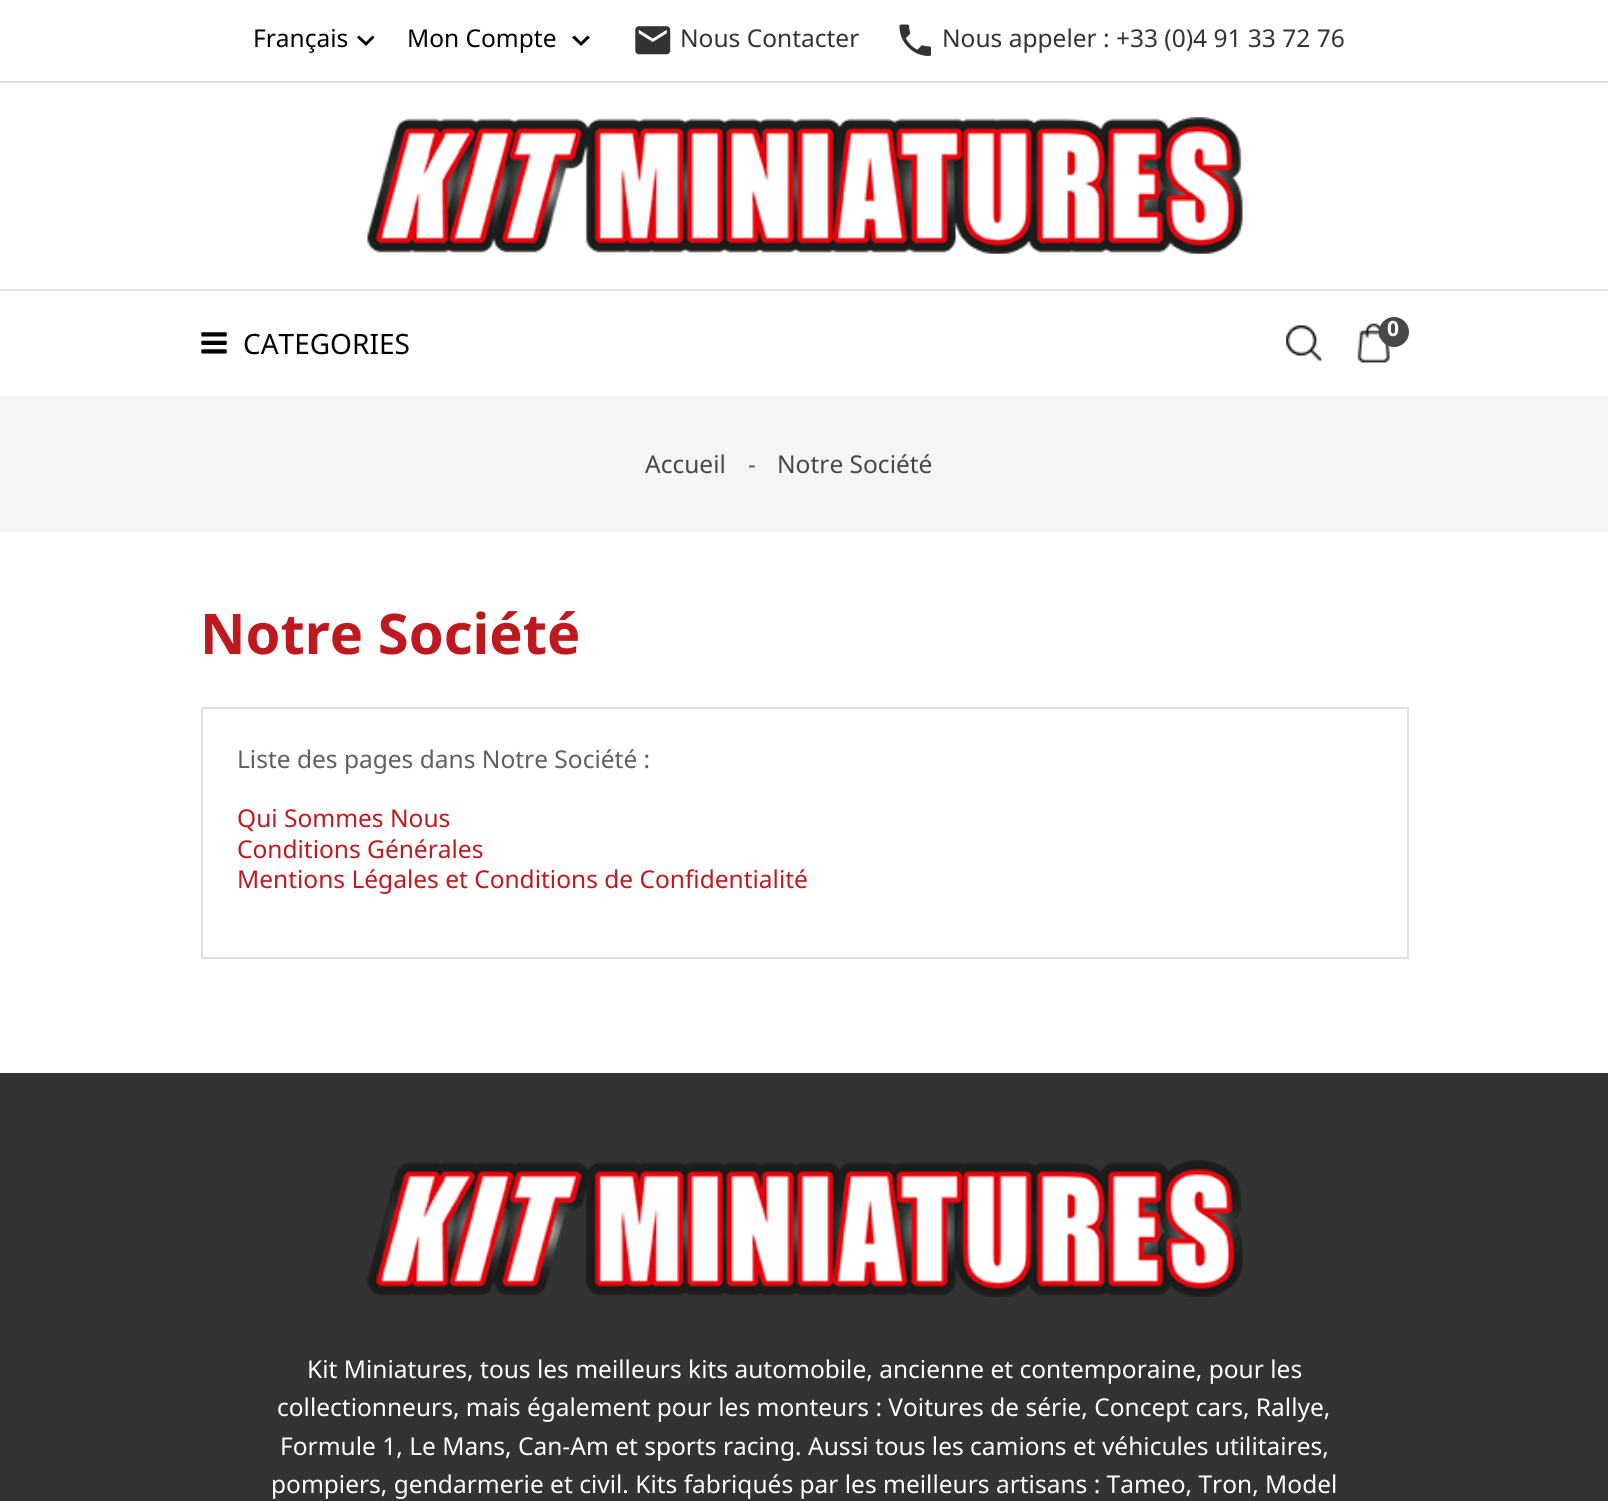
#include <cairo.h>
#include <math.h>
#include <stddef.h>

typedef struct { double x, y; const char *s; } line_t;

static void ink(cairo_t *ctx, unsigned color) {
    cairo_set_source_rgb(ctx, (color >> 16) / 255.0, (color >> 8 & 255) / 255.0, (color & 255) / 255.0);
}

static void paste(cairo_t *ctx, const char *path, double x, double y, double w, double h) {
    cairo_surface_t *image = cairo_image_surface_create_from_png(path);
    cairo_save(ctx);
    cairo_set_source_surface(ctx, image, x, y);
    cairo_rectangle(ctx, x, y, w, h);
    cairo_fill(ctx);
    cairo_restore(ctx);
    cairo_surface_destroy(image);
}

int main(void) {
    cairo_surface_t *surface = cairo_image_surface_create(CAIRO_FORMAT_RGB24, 1608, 1501);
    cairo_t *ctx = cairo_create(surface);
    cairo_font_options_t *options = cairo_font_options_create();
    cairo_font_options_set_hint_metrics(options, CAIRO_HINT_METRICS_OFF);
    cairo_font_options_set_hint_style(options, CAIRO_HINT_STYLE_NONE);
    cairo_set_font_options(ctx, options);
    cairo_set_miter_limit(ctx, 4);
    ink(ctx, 0xFFFFFF);
    cairo_paint(ctx);
    ink(ctx, 0xE0DEDE);
    cairo_rectangle(ctx, 0, 81, 1608, 2);
    cairo_fill(ctx);
    cairo_select_font_face(ctx, "Noto Sans", CAIRO_FONT_SLANT_NORMAL, CAIRO_FONT_WEIGHT_NORMAL);
    cairo_set_font_size(ctx, 24.5);
    ink(ctx, 0x000000);
    cairo_move_to(ctx, 253, 47);
    cairo_show_text(ctx, "Français");
    cairo_new_path(ctx);
    cairo_move_to(ctx, 372.5, 35.5);
    cairo_line_to(ctx, 374.5, 37.5);
    cairo_line_to(ctx, 366, 46);
    cairo_line_to(ctx, 357, 37.5);
    cairo_line_to(ctx, 359, 35.5);
    cairo_line_to(ctx, 366, 42);
    cairo_close_path(ctx);
    cairo_fill(ctx);
    cairo_move_to(ctx, 407, 47);
    cairo_show_text(ctx, "Mon Compte");
    cairo_new_path(ctx);
    cairo_move_to(ctx, 587.5, 35.5);
    cairo_line_to(ctx, 590, 37.5);
    cairo_line_to(ctx, 581, 46);
    cairo_line_to(ctx, 572, 37.5);
    cairo_line_to(ctx, 574.5, 35.5);
    cairo_line_to(ctx, 581, 42);
    cairo_close_path(ctx);
    cairo_fill(ctx);
    paste(ctx, "media/1.png", 635, 26, 36, 29);
    ink(ctx, 0x333333);
    cairo_move_to(ctx, 680, 47);
    cairo_show_text(ctx, "Nous Contacter");
    paste(ctx, "media/2.png", 899, 24, 32, 32);
    cairo_move_to(ctx, 942, 47);
    cairo_show_text(ctx, "Nous appeler : +33 (0)4 91 33 72 76");
    paste(ctx, "media/3.png", 367, 117, 876, 137);
    ink(ctx, 0xE5E5E5);
    cairo_rectangle(ctx, 0, 289, 1608, 2);
    cairo_fill(ctx);
    paste(ctx, "media/4.png", 201, 332, 26, 22);
    cairo_set_font_size(ctx, 28);
    ink(ctx, 0x000000);
    cairo_move_to(ctx, 243, 354);
    cairo_show_text(ctx, "CATEGORIES");
    paste(ctx, "media/5.png", 1286, 325, 36, 36);
    paste(ctx, "media/6.png", 1357, 323, 33, 40);
    ink(ctx, 0x484848);
    cairo_arc(ctx, 1394, 332, 15, 0, 2 * M_PI);
    cairo_fill(ctx);
    cairo_select_font_face(ctx, "Noto Sans", CAIRO_FONT_SLANT_NORMAL, CAIRO_FONT_WEIGHT_BOLD);
    cairo_set_font_size(ctx, 21);
    ink(ctx, 0xFFFFFF);
    cairo_move_to(ctx, 1387, 336);
    cairo_show_text(ctx, "0");
    ink(ctx, 0xF5F5F5);
    cairo_rectangle(ctx, 0, 396, 1608, 136);
    cairo_fill(ctx);
    cairo_select_font_face(ctx, "Noto Sans", CAIRO_FONT_SLANT_NORMAL, CAIRO_FONT_WEIGHT_NORMAL);
    cairo_set_font_size(ctx, 24.5);
    ink(ctx, 0x474747);
    cairo_move_to(ctx, 645, 473);
    cairo_show_text(ctx, "Accueil");
    ink(ctx, 0x5F5F5F);
    cairo_move_to(ctx, 748, 473);
    cairo_show_text(ctx, "-");
    ink(ctx, 0x474747);
    cairo_move_to(ctx, 777, 473);
    cairo_show_text(ctx, "Notre Société");
    cairo_select_font_face(ctx, "Noto Sans", CAIRO_FONT_SLANT_NORMAL, CAIRO_FONT_WEIGHT_BOLD);
    cairo_set_font_size(ctx, 56);
    ink(ctx, 0xBE191E);
    cairo_move_to(ctx, 200, 654);
    cairo_show_text(ctx, "Notre Société");
    cairo_rectangle(ctx, 202, 708, 1206, 250);
    ink(ctx, 0xDFDFDF);
    cairo_stroke(ctx);
    cairo_select_font_face(ctx, "Noto Sans", CAIRO_FONT_SLANT_NORMAL, CAIRO_FONT_WEIGHT_NORMAL);
    cairo_set_font_size(ctx, 24.5);
    ink(ctx, 0x5F5F5F);
    cairo_move_to(ctx, 237, 768);
    cairo_show_text(ctx, "Liste des pages dans Notre Société :");
    ink(ctx, 0xBE191E);
    {
        static const line_t items[] = {
            {237, 827, "Qui Sommes Nous"},
            {237, 858, "Conditions Générales"},
            {237, 888, "Mentions Légales et Conditions de Confidentialité"},
        };
        for (size_t i = 0; i < sizeof items / sizeof *items; i++) {
            cairo_move_to(ctx, items[i].x, items[i].y);
            cairo_show_text(ctx, items[i].s);
        }
    }
    ink(ctx, 0x333333);
    cairo_rectangle(ctx, 0, 1073, 1608, 428);
    cairo_fill(ctx);
    paste(ctx, "media/7.png", 367, 1160, 876, 137);
    ink(ctx, 0xFFFFFF);
    {
        static const line_t items[] = {
            {307, 1378, "Kit Miniatures, tous les meilleurs kits automobile, ancienne et contemporaine, pour les"},
            {277, 1416, "collectionneurs, mais également pour les monteurs : Voitures de série, Concept cars, Rallye,"},
            {280, 1455, "Formule 1, Le Mans, Can-Am et sports racing. Aussi tous les camions et véhicules utilitaires,"},
            {271, 1493, "pompiers, gendarmerie et civil. Kits fabriqués par les meilleurs artisans : Tameo, Tron, Model"},
        };
        for (size_t i = 0; i < sizeof items / sizeof *items; i++) {
            cairo_move_to(ctx, items[i].x, items[i].y);
            cairo_show_text(ctx, items[i].s);
        }
    }
    cairo_surface_write_to_png(surface, "image.png");
    cairo_font_options_destroy(options);
    cairo_destroy(ctx);
    cairo_surface_destroy(surface);
    return 0;
}
